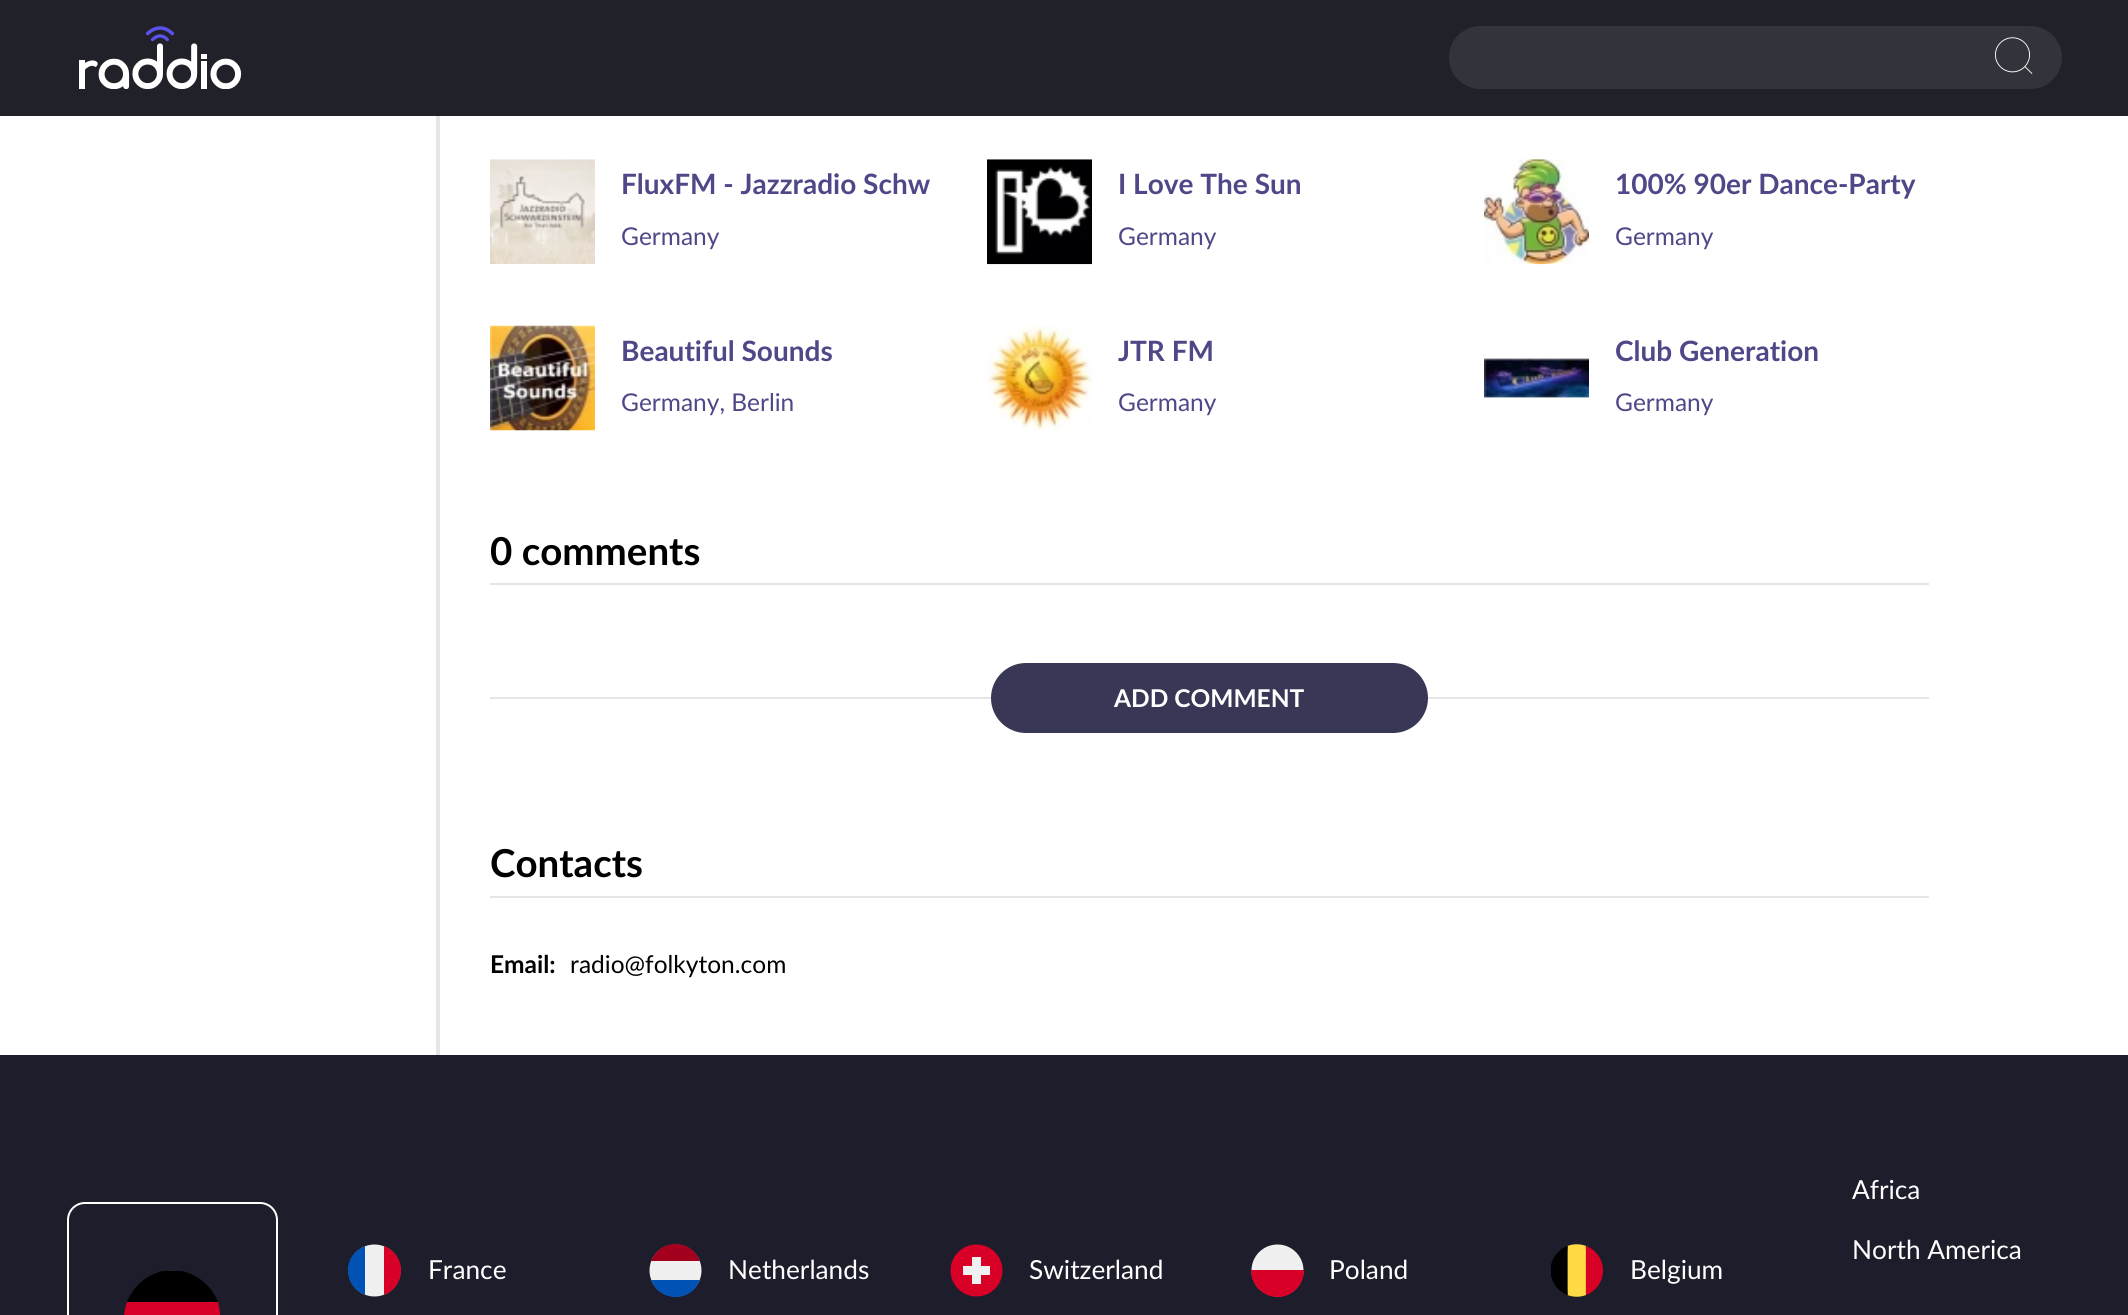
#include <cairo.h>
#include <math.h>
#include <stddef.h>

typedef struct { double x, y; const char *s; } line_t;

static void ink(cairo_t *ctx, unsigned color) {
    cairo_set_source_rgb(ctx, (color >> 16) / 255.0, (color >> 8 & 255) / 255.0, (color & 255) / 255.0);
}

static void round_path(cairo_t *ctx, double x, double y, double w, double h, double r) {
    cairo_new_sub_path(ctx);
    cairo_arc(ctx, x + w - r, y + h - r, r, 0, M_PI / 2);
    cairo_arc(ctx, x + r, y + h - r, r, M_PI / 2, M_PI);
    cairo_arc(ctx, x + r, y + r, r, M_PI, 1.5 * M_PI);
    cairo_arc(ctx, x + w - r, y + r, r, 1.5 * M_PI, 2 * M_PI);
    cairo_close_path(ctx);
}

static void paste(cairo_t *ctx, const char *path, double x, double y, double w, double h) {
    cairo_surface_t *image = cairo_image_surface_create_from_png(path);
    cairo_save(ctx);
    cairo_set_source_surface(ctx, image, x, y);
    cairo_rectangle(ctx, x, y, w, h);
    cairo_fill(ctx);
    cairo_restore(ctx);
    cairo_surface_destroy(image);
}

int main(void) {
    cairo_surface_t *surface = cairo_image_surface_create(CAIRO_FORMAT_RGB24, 2128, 1315);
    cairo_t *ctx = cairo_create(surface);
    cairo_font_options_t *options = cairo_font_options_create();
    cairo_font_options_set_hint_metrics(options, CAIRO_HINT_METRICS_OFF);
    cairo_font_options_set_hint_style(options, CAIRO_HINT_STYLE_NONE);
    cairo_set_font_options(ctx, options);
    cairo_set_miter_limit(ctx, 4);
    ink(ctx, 0xFFFFFF);
    cairo_paint(ctx);
    ink(ctx, 0x212129);
    cairo_rectangle(ctx, 0, 0, 2128, 116);
    cairo_fill(ctx);
    paste(ctx, "media/1.png", 79, 26, 163, 63);
    ink(ctx, 0x33333B);
    round_path(ctx, 1449, 26, 613, 63, 31.5);
    cairo_fill(ctx);
    paste(ctx, "media/2.png", 1995, 37, 38, 37);
    ink(ctx, 0xE5E5E5);
    cairo_rectangle(ctx, 436, 116, 4, 939);
    cairo_fill(ctx);
    paste(ctx, "media/3.png", 490, 159, 105, 105);
    cairo_select_font_face(ctx, "Lato", CAIRO_FONT_SLANT_NORMAL, CAIRO_FONT_WEIGHT_BOLD);
    cairo_set_font_size(ctx, 28);
    ink(ctx, 0x4E4888);
    cairo_move_to(ctx, 621, 194);
    cairo_show_text(ctx, "FluxFM - Jazzradio Schw");
    cairo_select_font_face(ctx, "Lato", CAIRO_FONT_SLANT_NORMAL, CAIRO_FONT_WEIGHT_NORMAL);
    cairo_set_font_size(ctx, 24.5);
    cairo_move_to(ctx, 621, 245);
    cairo_show_text(ctx, "Germany");
    paste(ctx, "media/4.png", 987, 159, 105, 106);
    cairo_select_font_face(ctx, "Lato", CAIRO_FONT_SLANT_NORMAL, CAIRO_FONT_WEIGHT_BOLD);
    cairo_set_font_size(ctx, 28);
    cairo_move_to(ctx, 1118, 194);
    cairo_show_text(ctx, "I Love The Sun");
    cairo_select_font_face(ctx, "Lato", CAIRO_FONT_SLANT_NORMAL, CAIRO_FONT_WEIGHT_NORMAL);
    cairo_set_font_size(ctx, 24.5);
    cairo_move_to(ctx, 1118, 245);
    cairo_show_text(ctx, "Germany");
    paste(ctx, "media/5.png", 1484, 159, 105, 106);
    cairo_select_font_face(ctx, "Lato", CAIRO_FONT_SLANT_NORMAL, CAIRO_FONT_WEIGHT_BOLD);
    cairo_set_font_size(ctx, 28);
    cairo_move_to(ctx, 1615, 194);
    cairo_show_text(ctx, "100% 90er Dance-Party");
    cairo_select_font_face(ctx, "Lato", CAIRO_FONT_SLANT_NORMAL, CAIRO_FONT_WEIGHT_NORMAL);
    cairo_set_font_size(ctx, 24.5);
    cairo_move_to(ctx, 1615, 245);
    cairo_show_text(ctx, "Germany");
    paste(ctx, "media/6.png", 490, 325, 105, 106);
    cairo_select_font_face(ctx, "Lato", CAIRO_FONT_SLANT_NORMAL, CAIRO_FONT_WEIGHT_BOLD);
    cairo_set_font_size(ctx, 28);
    cairo_move_to(ctx, 621, 361);
    cairo_show_text(ctx, "Beautiful Sounds");
    cairo_select_font_face(ctx, "Lato", CAIRO_FONT_SLANT_NORMAL, CAIRO_FONT_WEIGHT_NORMAL);
    cairo_set_font_size(ctx, 24.5);
    cairo_move_to(ctx, 621, 411);
    cairo_show_text(ctx, "Germany, Berlin");
    paste(ctx, "media/7.png", 987, 326, 105, 105);
    cairo_select_font_face(ctx, "Lato", CAIRO_FONT_SLANT_NORMAL, CAIRO_FONT_WEIGHT_BOLD);
    cairo_set_font_size(ctx, 28);
    cairo_move_to(ctx, 1118, 361);
    cairo_show_text(ctx, "JTR FM");
    cairo_select_font_face(ctx, "Lato", CAIRO_FONT_SLANT_NORMAL, CAIRO_FONT_WEIGHT_NORMAL);
    cairo_set_font_size(ctx, 24.5);
    cairo_move_to(ctx, 1118, 411);
    cairo_show_text(ctx, "Germany");
    paste(ctx, "media/8.png", 1484, 358, 105, 40);
    cairo_select_font_face(ctx, "Lato", CAIRO_FONT_SLANT_NORMAL, CAIRO_FONT_WEIGHT_BOLD);
    cairo_set_font_size(ctx, 28);
    cairo_move_to(ctx, 1615, 361);
    cairo_show_text(ctx, "Club Generation");
    cairo_select_font_face(ctx, "Lato", CAIRO_FONT_SLANT_NORMAL, CAIRO_FONT_WEIGHT_NORMAL);
    cairo_set_font_size(ctx, 24.5);
    cairo_move_to(ctx, 1615, 411);
    cairo_show_text(ctx, "Germany");
    ink(ctx, 0xE5E5E5);
    cairo_rectangle(ctx, 490, 583, 1439, 2);
    cairo_fill(ctx);
    cairo_select_font_face(ctx, "Lato", CAIRO_FONT_SLANT_NORMAL, CAIRO_FONT_WEIGHT_BOLD);
    cairo_set_font_size(ctx, 38.5);
    ink(ctx, 0x000000);
    cairo_move_to(ctx, 490, 565);
    cairo_show_text(ctx, "0 comments");
    ink(ctx, 0xE5E5E5);
    cairo_rectangle(ctx, 490, 697, 1439, 2);
    cairo_fill(ctx);
    ink(ctx, 0x393756);
    round_path(ctx, 991, 663, 437, 70, 35);
    cairo_fill(ctx);
    cairo_set_font_size(ctx, 24.5);
    ink(ctx, 0xFFFFFF);
    cairo_move_to(ctx, 1114, 707);
    cairo_show_text(ctx, "ADD COMMENT");
    ink(ctx, 0xE5E5E5);
    cairo_rectangle(ctx, 490, 896, 1439, 2);
    cairo_fill(ctx);
    cairo_set_font_size(ctx, 38.5);
    ink(ctx, 0x000000);
    cairo_move_to(ctx, 490, 877);
    cairo_show_text(ctx, "Contacts");
    cairo_set_font_size(ctx, 24.5);
    cairo_move_to(ctx, 490, 973);
    cairo_show_text(ctx, "Email:");
    cairo_select_font_face(ctx, "Lato", CAIRO_FONT_SLANT_NORMAL, CAIRO_FONT_WEIGHT_NORMAL);
    cairo_move_to(ctx, 570, 973);
    cairo_show_text(ctx, "radio@folkyton.com");
    ink(ctx, 0x1D1D2B);
    cairo_rectangle(ctx, 0, 1055, 2128, 260);
    cairo_fill(ctx);
    round_path(ctx, 68, 1203, 209, 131, 17);
    ink(ctx, 0xFFFFFF);
    cairo_stroke(ctx);
    cairo_save(ctx);
    cairo_rectangle(ctx, 124, 1271, 97, 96);
    cairo_clip(ctx);
    ink(ctx, 0x000000);
    cairo_new_path(ctx);
    cairo_move_to(ctx, 172, 1270);
    cairo_curve_to(ctx, 152, 1270, 134, 1284, 127, 1302);
    cairo_line_to(ctx, 172, 1306);
    cairo_line_to(ctx, 218, 1302);
    cairo_curve_to(ctx, 211, 1284, 193, 1270, 172, 1270);
    cairo_close_path(ctx);
    cairo_fill(ctx);
    cairo_restore(ctx);
    ink(ctx, 0xD80027);
    cairo_new_path(ctx);
    cairo_move_to(ctx, 127, 1302);
    cairo_curve_to(ctx, 123, 1313, 123, 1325, 127, 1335);
    cairo_line_to(ctx, 218, 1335);
    cairo_curve_to(ctx, 221, 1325, 221, 1313, 218, 1302);
    cairo_close_path(ctx);
    cairo_fill(ctx);
    ink(ctx, 0xF0F0F0);
    cairo_arc(ctx, 374.5, 1270.5, 26, 0, 2 * M_PI);
    cairo_fill(ctx);
    ink(ctx, 0xD80027);
    cairo_new_path(ctx);
    cairo_move_to(ctx, 401, 1270);
    cairo_curve_to(ctx, 401, 1259, 394, 1250, 384, 1246);
    cairo_line_to(ctx, 384, 1295);
    cairo_curve_to(ctx, 394, 1291, 401, 1282, 401, 1270);
    cairo_close_path(ctx);
    cairo_fill(ctx);
    ink(ctx, 0x0052B4);
    cairo_new_path(ctx);
    cairo_move_to(ctx, 348, 1270);
    cairo_curve_to(ctx, 348, 1282, 355, 1291, 365, 1295);
    cairo_line_to(ctx, 365, 1246);
    cairo_curve_to(ctx, 355, 1250, 348, 1259, 348, 1270);
    cairo_close_path(ctx);
    cairo_fill(ctx);
    cairo_set_font_size(ctx, 26.25);
    ink(ctx, 0xFFFFFF);
    cairo_move_to(ctx, 428, 1279);
    cairo_show_text(ctx, "France");
    ink(ctx, 0xF0F0F0);
    cairo_new_path(ctx);
    cairo_arc(ctx, 675.5, 1270.5, 26, 0, 2 * M_PI);
    cairo_fill(ctx);
    ink(ctx, 0xA2001D);
    cairo_new_path(ctx);
    cairo_move_to(ctx, 676, 1244);
    cairo_curve_to(ctx, 664, 1244, 655, 1251, 651, 1261);
    cairo_line_to(ctx, 700, 1261);
    cairo_curve_to(ctx, 696, 1251, 687, 1244, 676, 1244);
    cairo_close_path(ctx);
    cairo_fill(ctx);
    ink(ctx, 0x0052B4);
    cairo_new_path(ctx);
    cairo_move_to(ctx, 676, 1297);
    cairo_curve_to(ctx, 687, 1297, 696, 1290, 700, 1280);
    cairo_line_to(ctx, 651, 1280);
    cairo_curve_to(ctx, 655, 1290, 664, 1297, 676, 1297);
    cairo_close_path(ctx);
    cairo_fill(ctx);
    ink(ctx, 0xFFFFFF);
    cairo_move_to(ctx, 728, 1279);
    cairo_show_text(ctx, "Netherlands");
    ink(ctx, 0xD80027);
    cairo_new_path(ctx);
    cairo_arc(ctx, 976.5, 1270.5, 26, 0, 2 * M_PI);
    cairo_fill(ctx);
    ink(ctx, 0xF0F0F0);
    cairo_new_path(ctx);
    cairo_move_to(ctx, 990, 1266);
    cairo_line_to(ctx, 981, 1266);
    cairo_line_to(ctx, 981, 1257);
    cairo_line_to(ctx, 972, 1257);
    cairo_line_to(ctx, 972, 1266);
    cairo_line_to(ctx, 963, 1266);
    cairo_line_to(ctx, 963, 1275);
    cairo_line_to(ctx, 972, 1275);
    cairo_line_to(ctx, 972, 1284);
    cairo_line_to(ctx, 981, 1284);
    cairo_line_to(ctx, 981, 1275);
    cairo_line_to(ctx, 990, 1275);
    cairo_close_path(ctx);
    cairo_fill(ctx);
    ink(ctx, 0xFFFFFF);
    cairo_move_to(ctx, 1029, 1279);
    cairo_show_text(ctx, "Switzerland");
    ink(ctx, 0xF0F0F0);
    cairo_new_path(ctx);
    cairo_arc(ctx, 1277.5, 1270.5, 26, 0, 2 * M_PI);
    cairo_fill(ctx);
    ink(ctx, 0xD80027);
    cairo_new_path(ctx);
    cairo_move_to(ctx, 1304, 1270);
    cairo_curve_to(ctx, 1304, 1285, 1292, 1297, 1278, 1297);
    cairo_curve_to(ctx, 1263, 1297, 1251, 1285, 1251, 1270);
    cairo_fill(ctx);
    ink(ctx, 0xFFFFFF);
    cairo_move_to(ctx, 1329, 1279);
    cairo_show_text(ctx, "Poland");
    paste(ctx, "media/9.png", 1551, 1244, 52, 53);
    {
        static const line_t items[] = {
            {1630, 1279, "Belgium"},
            {1852, 1199, "Africa"},
            {1852, 1259, "North America"},
        };
        for (size_t i = 0; i < sizeof items / sizeof *items; i++) {
            cairo_move_to(ctx, items[i].x, items[i].y);
            cairo_show_text(ctx, items[i].s);
        }
    }
    cairo_surface_write_to_png(surface, "image.png");
    cairo_font_options_destroy(options);
    cairo_destroy(ctx);
    cairo_surface_destroy(surface);
    return 0;
}
